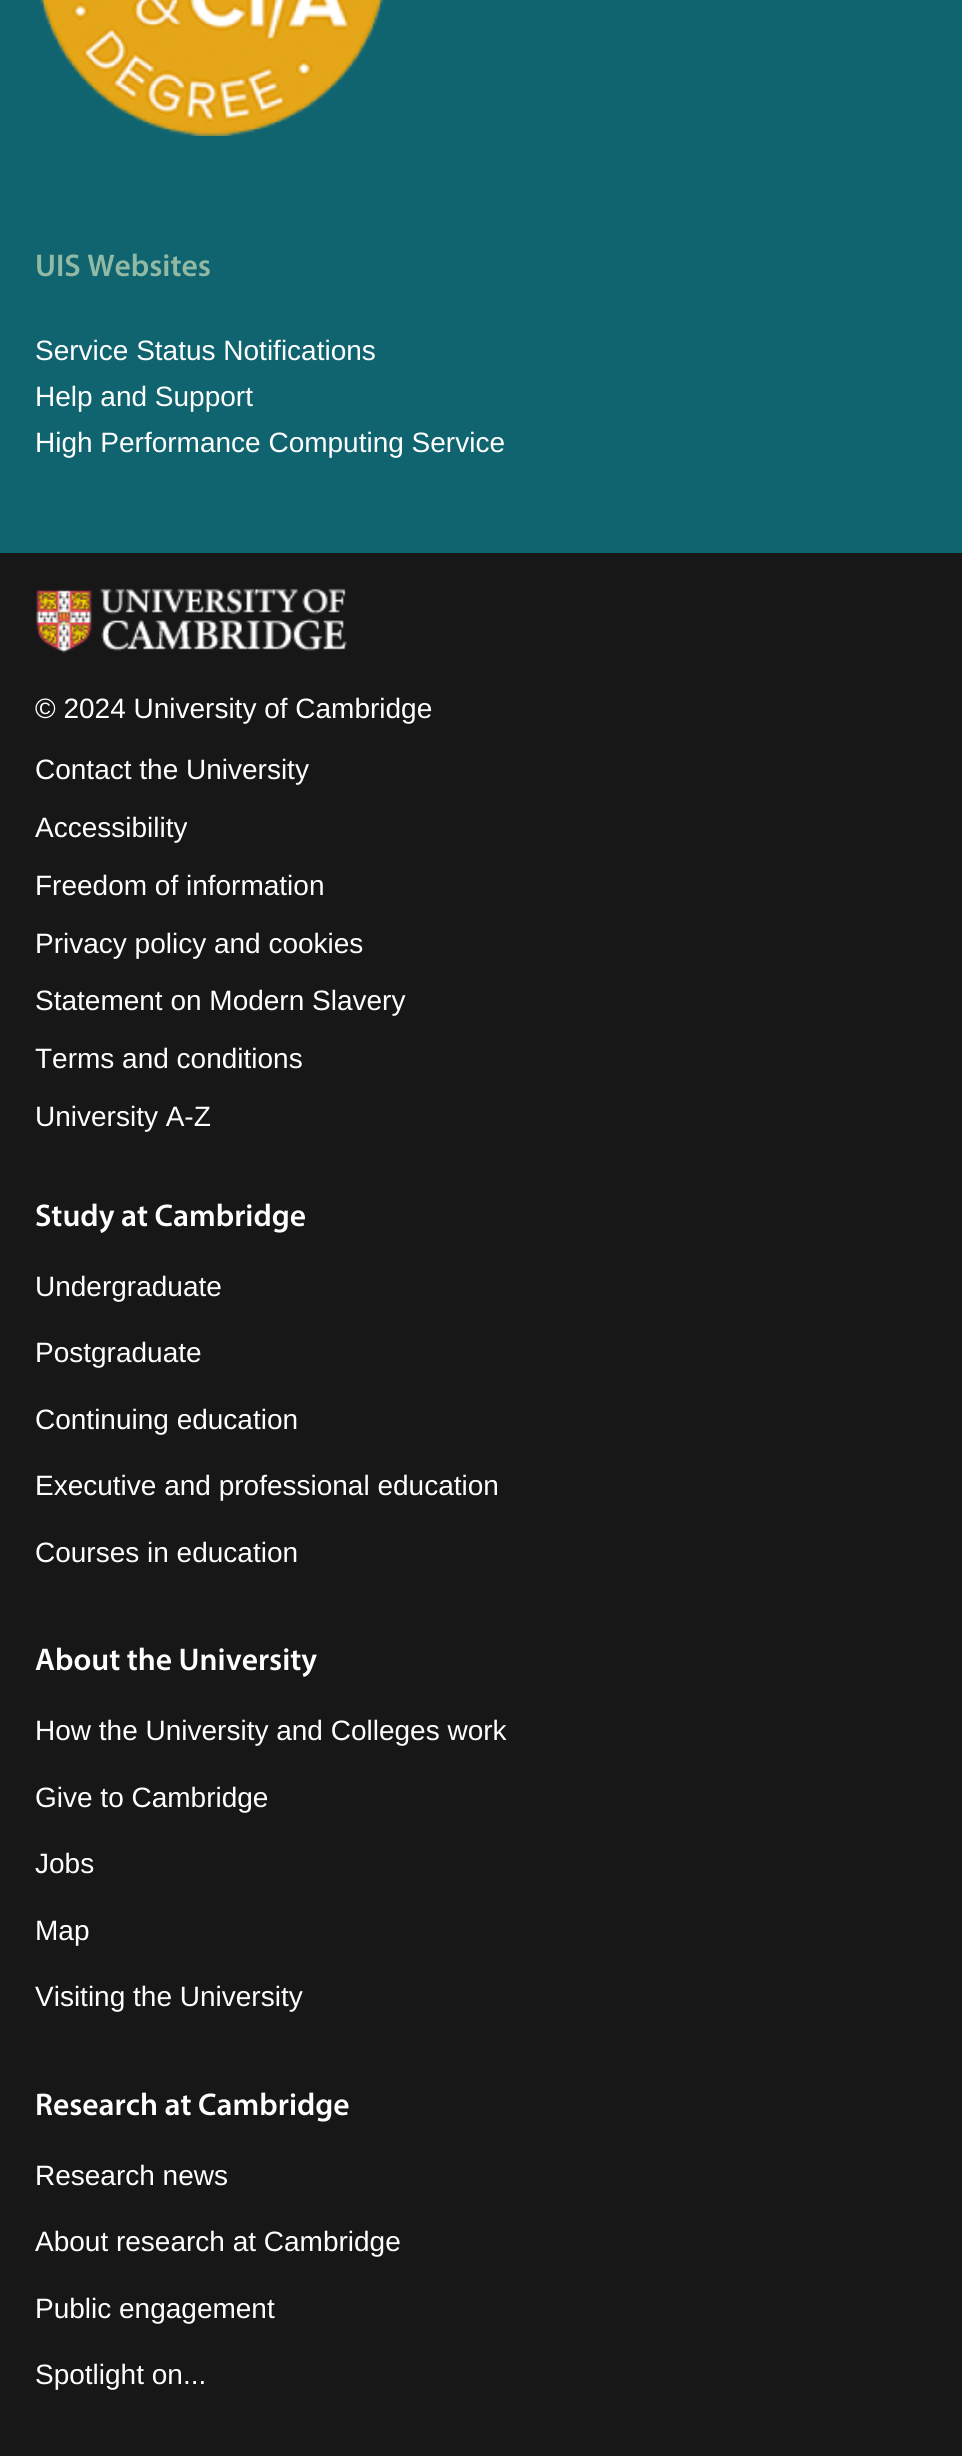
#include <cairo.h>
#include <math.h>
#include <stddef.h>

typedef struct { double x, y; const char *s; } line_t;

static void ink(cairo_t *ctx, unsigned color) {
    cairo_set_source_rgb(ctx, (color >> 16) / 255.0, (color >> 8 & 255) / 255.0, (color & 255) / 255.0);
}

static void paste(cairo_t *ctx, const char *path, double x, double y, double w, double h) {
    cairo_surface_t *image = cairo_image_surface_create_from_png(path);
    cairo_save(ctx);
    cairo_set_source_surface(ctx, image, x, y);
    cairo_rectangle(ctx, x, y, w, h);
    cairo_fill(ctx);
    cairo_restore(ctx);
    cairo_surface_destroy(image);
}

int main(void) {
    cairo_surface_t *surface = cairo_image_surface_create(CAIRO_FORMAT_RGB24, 962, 2456);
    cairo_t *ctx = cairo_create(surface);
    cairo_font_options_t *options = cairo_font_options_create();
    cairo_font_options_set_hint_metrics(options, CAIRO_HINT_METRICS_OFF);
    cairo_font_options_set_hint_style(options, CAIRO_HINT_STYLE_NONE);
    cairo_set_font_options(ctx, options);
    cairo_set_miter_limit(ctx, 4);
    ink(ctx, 0x106470);
    cairo_paint(ctx);
    paste(ctx, "media/1.png", 40, 0, 344, 136);
    cairo_select_font_face(ctx, "Myriad SemiBold", CAIRO_FONT_SLANT_NORMAL, CAIRO_FONT_WEIGHT_NORMAL);
    cairo_set_font_size(ctx, 31.5);
    ink(ctx, 0x91B9A4);
    cairo_move_to(ctx, 35, 276);
    cairo_show_text(ctx, "UIS Websites");
    cairo_select_font_face(ctx, "Liberation Sans", CAIRO_FONT_SLANT_NORMAL, CAIRO_FONT_WEIGHT_NORMAL);
    cairo_set_font_size(ctx, 28);
    ink(ctx, 0xFFFFFF);
    {
        static const line_t items[] = {
            {35, 360, "Service Status Notifications"},
            {35, 406, "Help and Support"},
            {35, 452, "High Performance Computing Service"},
        };
        for (size_t i = 0; i < sizeof items / sizeof *items; i++) {
            cairo_move_to(ctx, items[i].x, items[i].y);
            cairo_show_text(ctx, items[i].s);
        }
    }
    ink(ctx, 0x171717);
    cairo_rectangle(ctx, 0, 553, 962, 1903);
    cairo_fill(ctx);
    paste(ctx, "media/2.png", 36, 588, 311, 65);
    ink(ctx, 0xFFFFFF);
    {
        static const line_t items[] = {
            {35, 718, "© 2024 University of Cambridge"},
            {35, 779, "Contact the University"},
            {35, 837, "Accessibility"},
            {35, 895, "Freedom of information"},
            {35, 953, "Privacy policy and cookies"},
            {35, 1010, "Statement on Modern Slavery"},
            {35, 1068, "Terms and conditions"},
            {35, 1126, "University A-Z"},
        };
        for (size_t i = 0; i < sizeof items / sizeof *items; i++) {
            cairo_move_to(ctx, items[i].x, items[i].y);
            cairo_show_text(ctx, items[i].s);
        }
    }
    cairo_select_font_face(ctx, "Myriad SemiBold", CAIRO_FONT_SLANT_NORMAL, CAIRO_FONT_WEIGHT_NORMAL);
    cairo_set_font_size(ctx, 31.5);
    cairo_move_to(ctx, 35, 1226);
    cairo_show_text(ctx, "Study at Cambridge");
    cairo_select_font_face(ctx, "Liberation Sans", CAIRO_FONT_SLANT_NORMAL, CAIRO_FONT_WEIGHT_NORMAL);
    cairo_set_font_size(ctx, 28);
    {
        static const line_t items[] = {
            {35, 1296, "Undergraduate"},
            {35, 1362, "Postgraduate"},
            {35, 1429, "Continuing education"},
            {35, 1495, "Executive and professional education"},
            {35, 1562, "Courses in education"},
        };
        for (size_t i = 0; i < sizeof items / sizeof *items; i++) {
            cairo_move_to(ctx, items[i].x, items[i].y);
            cairo_show_text(ctx, items[i].s);
        }
    }
    cairo_select_font_face(ctx, "Myriad SemiBold", CAIRO_FONT_SLANT_NORMAL, CAIRO_FONT_WEIGHT_NORMAL);
    cairo_set_font_size(ctx, 31.5);
    cairo_move_to(ctx, 35, 1670);
    cairo_show_text(ctx, "About the University");
    cairo_select_font_face(ctx, "Liberation Sans", CAIRO_FONT_SLANT_NORMAL, CAIRO_FONT_WEIGHT_NORMAL);
    cairo_set_font_size(ctx, 28);
    {
        static const line_t items[] = {
            {35, 1740, "How the University and Colleges work"},
            {35, 1807, "Give to Cambridge"},
            {35, 1873, "Jobs"},
            {35, 1940, "Map"},
            {35, 2006, "Visiting the University"},
        };
        for (size_t i = 0; i < sizeof items / sizeof *items; i++) {
            cairo_move_to(ctx, items[i].x, items[i].y);
            cairo_show_text(ctx, items[i].s);
        }
    }
    cairo_select_font_face(ctx, "Myriad SemiBold", CAIRO_FONT_SLANT_NORMAL, CAIRO_FONT_WEIGHT_NORMAL);
    cairo_set_font_size(ctx, 31.5);
    cairo_move_to(ctx, 35, 2115);
    cairo_show_text(ctx, "Research at Cambridge");
    cairo_select_font_face(ctx, "Liberation Sans", CAIRO_FONT_SLANT_NORMAL, CAIRO_FONT_WEIGHT_NORMAL);
    cairo_set_font_size(ctx, 28);
    {
        static const line_t items[] = {
            {35, 2185, "Research news"},
            {35, 2251, "About research at Cambridge"},
            {35, 2318, "Public engagement"},
            {35, 2384, "Spotlight on..."},
        };
        for (size_t i = 0; i < sizeof items / sizeof *items; i++) {
            cairo_move_to(ctx, items[i].x, items[i].y);
            cairo_show_text(ctx, items[i].s);
        }
    }
    cairo_surface_write_to_png(surface, "image.png");
    cairo_font_options_destroy(options);
    cairo_destroy(ctx);
    cairo_surface_destroy(surface);
    return 0;
}
